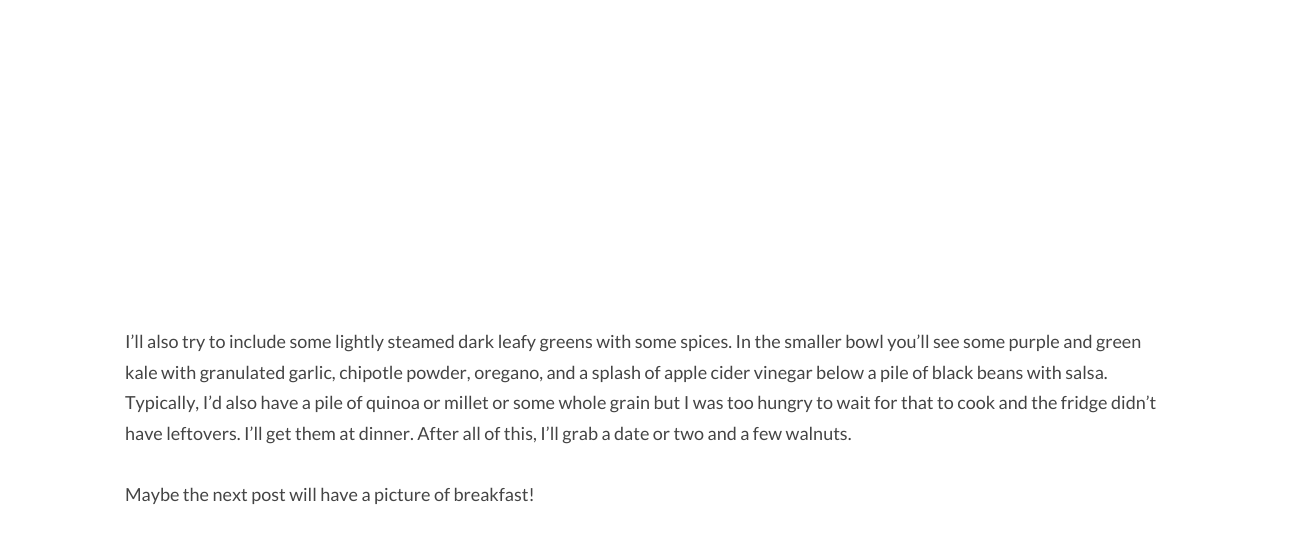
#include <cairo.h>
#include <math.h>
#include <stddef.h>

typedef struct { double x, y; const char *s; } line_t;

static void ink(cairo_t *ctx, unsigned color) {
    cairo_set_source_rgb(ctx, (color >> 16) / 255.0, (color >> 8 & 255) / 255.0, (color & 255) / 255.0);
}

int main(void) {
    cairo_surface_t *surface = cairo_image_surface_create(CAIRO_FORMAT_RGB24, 1289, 555);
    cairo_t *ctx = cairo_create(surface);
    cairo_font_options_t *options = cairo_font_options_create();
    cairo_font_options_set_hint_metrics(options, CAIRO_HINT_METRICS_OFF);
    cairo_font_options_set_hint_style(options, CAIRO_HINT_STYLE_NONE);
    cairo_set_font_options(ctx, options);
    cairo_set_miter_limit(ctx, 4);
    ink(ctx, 0xFFFFFF);
    cairo_paint(ctx);
    cairo_select_font_face(ctx, "Lato", CAIRO_FONT_SLANT_NORMAL, CAIRO_FONT_WEIGHT_NORMAL);
    cairo_set_font_size(ctx, 18);
    ink(ctx, 0x444444);
    {
        static const line_t items[] = {
            {125, 348, "I’ll also try to include some lightly steamed dark leafy greens with some spices. In the smaller bowl you’ll see some purple and green"},
            {125, 379, "kale with granulated garlic, chipotle powder, oregano, and a splash of apple cider vinegar below a pile of black beans with salsa."},
            {125, 409, "Typically, I’d also have a pile of quinoa or millet or some whole grain but I was too hungry to wait for that to cook and the fridge didn’t"},
            {125, 440, "have leftovers. I’ll get them at dinner. After all of this, I’ll grab a date or two and a few walnuts."},
            {125, 501, "Maybe the next post will have a picture of breakfast!"},
        };
        for (size_t i = 0; i < sizeof items / sizeof *items; i++) {
            cairo_move_to(ctx, items[i].x, items[i].y);
            cairo_show_text(ctx, items[i].s);
        }
    }
    cairo_surface_write_to_png(surface, "image.png");
    cairo_font_options_destroy(options);
    cairo_destroy(ctx);
    cairo_surface_destroy(surface);
    return 0;
}
